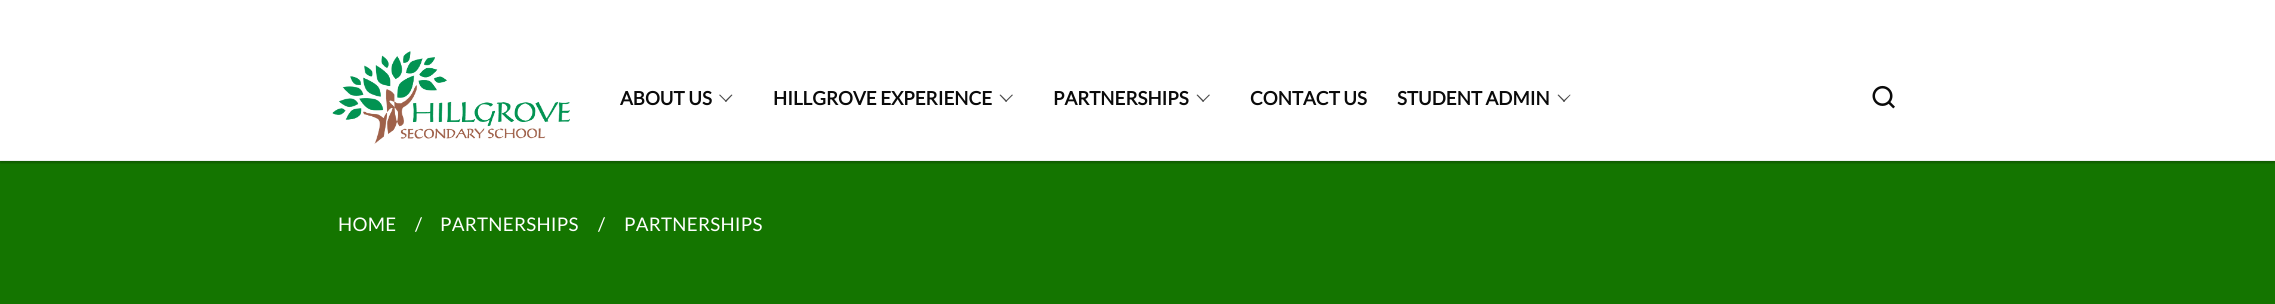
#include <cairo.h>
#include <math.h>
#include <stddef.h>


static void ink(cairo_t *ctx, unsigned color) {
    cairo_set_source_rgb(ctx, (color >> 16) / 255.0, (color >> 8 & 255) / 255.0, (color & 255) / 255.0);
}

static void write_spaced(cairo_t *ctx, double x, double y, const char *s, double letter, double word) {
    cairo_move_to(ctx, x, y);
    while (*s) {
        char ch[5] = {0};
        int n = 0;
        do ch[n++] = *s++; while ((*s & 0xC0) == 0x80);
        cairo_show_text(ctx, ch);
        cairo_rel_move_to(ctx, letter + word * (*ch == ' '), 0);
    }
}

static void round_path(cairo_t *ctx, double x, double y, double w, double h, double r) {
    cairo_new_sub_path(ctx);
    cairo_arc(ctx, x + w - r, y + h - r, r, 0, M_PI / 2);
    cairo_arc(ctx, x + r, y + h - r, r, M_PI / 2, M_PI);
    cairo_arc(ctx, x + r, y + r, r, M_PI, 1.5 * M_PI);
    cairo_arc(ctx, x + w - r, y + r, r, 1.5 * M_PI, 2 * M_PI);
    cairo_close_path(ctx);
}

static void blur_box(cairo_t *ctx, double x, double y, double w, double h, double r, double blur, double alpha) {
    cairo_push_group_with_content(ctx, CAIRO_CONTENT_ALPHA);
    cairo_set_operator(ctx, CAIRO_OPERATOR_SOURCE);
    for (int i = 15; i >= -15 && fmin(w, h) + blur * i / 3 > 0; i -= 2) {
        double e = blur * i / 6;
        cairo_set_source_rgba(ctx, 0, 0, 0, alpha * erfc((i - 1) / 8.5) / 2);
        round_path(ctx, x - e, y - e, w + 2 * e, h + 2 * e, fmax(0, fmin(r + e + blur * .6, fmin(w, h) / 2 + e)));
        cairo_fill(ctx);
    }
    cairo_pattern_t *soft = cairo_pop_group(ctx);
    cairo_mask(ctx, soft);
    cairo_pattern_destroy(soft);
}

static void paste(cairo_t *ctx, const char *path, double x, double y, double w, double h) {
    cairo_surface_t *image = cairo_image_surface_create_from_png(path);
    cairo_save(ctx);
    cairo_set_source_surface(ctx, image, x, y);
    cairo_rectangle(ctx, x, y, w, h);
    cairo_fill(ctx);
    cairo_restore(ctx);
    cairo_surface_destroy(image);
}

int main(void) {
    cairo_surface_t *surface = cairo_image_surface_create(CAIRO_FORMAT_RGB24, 2275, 304);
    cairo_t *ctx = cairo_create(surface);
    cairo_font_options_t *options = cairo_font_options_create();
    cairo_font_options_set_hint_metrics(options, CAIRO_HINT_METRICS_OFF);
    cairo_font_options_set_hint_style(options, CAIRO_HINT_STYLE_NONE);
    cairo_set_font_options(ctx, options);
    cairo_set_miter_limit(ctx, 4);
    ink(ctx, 0xFFFFFF);
    cairo_paint(ctx);
    ink(ctx, 0x147500);
    cairo_rectangle(ctx, 0, 161, 2275, 143);
    cairo_fill(ctx);
    cairo_save(ctx);
    cairo_rectangle(ctx, 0, 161, 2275, 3);
    cairo_clip(ctx);
    ink(ctx, 0x000000);
    blur_box(ctx, 0, -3, 2275, 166, 0, 1, 0.24);
    cairo_restore(ctx);
    ink(ctx, 0xF0F0F0);
    cairo_rectangle(ctx, 0, 160, 2275, 1);
    cairo_fill(ctx);
    paste(ctx, "media/1.png", 332, 51, 238, 93);
    cairo_select_font_face(ctx, "Lato", CAIRO_FONT_SLANT_NORMAL, CAIRO_FONT_WEIGHT_BOLD);
    cairo_set_font_size(ctx, 18.75);
    ink(ctx, 0x0A0A0A);
    cairo_move_to(ctx, 620, 105);
    cairo_show_text(ctx, "ABOUT US");
    ink(ctx, 0x484848);
    cairo_new_path(ctx);
    cairo_move_to(ctx, 725, 101);
    cairo_line_to(ctx, 731.5, 94.5);
    cairo_line_to(ctx, 732.5, 95);
    cairo_line_to(ctx, 726, 102);
    cairo_close_path(ctx);
    cairo_fill(ctx);
    cairo_new_path(ctx);
    cairo_move_to(ctx, 719, 95);
    cairo_line_to(ctx, 720, 94.5);
    cairo_line_to(ctx, 726.5, 101);
    cairo_line_to(ctx, 726, 102);
    cairo_close_path(ctx);
    cairo_fill(ctx);
    ink(ctx, 0x0A0A0A);
    cairo_move_to(ctx, 773, 105);
    cairo_show_text(ctx, "HILLGROVE EXPERIENCE");
    ink(ctx, 0x484848);
    cairo_new_path(ctx);
    cairo_move_to(ctx, 1005.5, 101);
    cairo_line_to(ctx, 1012, 94.5);
    cairo_line_to(ctx, 1013, 95);
    cairo_line_to(ctx, 1006, 102);
    cairo_close_path(ctx);
    cairo_fill(ctx);
    cairo_new_path(ctx);
    cairo_move_to(ctx, 999.5, 95);
    cairo_line_to(ctx, 1000.5, 94.5);
    cairo_line_to(ctx, 1007, 101);
    cairo_line_to(ctx, 1006, 102);
    cairo_close_path(ctx);
    cairo_fill(ctx);
    ink(ctx, 0x0A0A0A);
    cairo_move_to(ctx, 1053, 105);
    cairo_show_text(ctx, "PARTNERSHIPS");
    ink(ctx, 0x484848);
    cairo_new_path(ctx);
    cairo_move_to(ctx, 1202.5, 101);
    cairo_line_to(ctx, 1209, 94.5);
    cairo_line_to(ctx, 1210, 95);
    cairo_line_to(ctx, 1203, 102);
    cairo_close_path(ctx);
    cairo_fill(ctx);
    cairo_new_path(ctx);
    cairo_move_to(ctx, 1196.5, 95);
    cairo_line_to(ctx, 1197.5, 94.5);
    cairo_line_to(ctx, 1204, 101);
    cairo_line_to(ctx, 1203, 102);
    cairo_close_path(ctx);
    cairo_fill(ctx);
    ink(ctx, 0x0A0A0A);
    cairo_move_to(ctx, 1250, 105);
    cairo_show_text(ctx, "CONTACT US");
    cairo_move_to(ctx, 1397, 105);
    cairo_show_text(ctx, "STUDENT ADMIN");
    ink(ctx, 0x484848);
    cairo_new_path(ctx);
    cairo_move_to(ctx, 1563, 101);
    cairo_line_to(ctx, 1570, 94.5);
    cairo_line_to(ctx, 1570.5, 95);
    cairo_line_to(ctx, 1564, 102);
    cairo_close_path(ctx);
    cairo_fill(ctx);
    cairo_new_path(ctx);
    cairo_move_to(ctx, 1557.5, 95);
    cairo_line_to(ctx, 1558.5, 94.5);
    cairo_line_to(ctx, 1565, 101);
    cairo_line_to(ctx, 1564, 102);
    cairo_close_path(ctx);
    cairo_fill(ctx);
    paste(ctx, "media/2.png", 1872, 85, 23, 24);
    cairo_select_font_face(ctx, "Lato", CAIRO_FONT_SLANT_NORMAL, CAIRO_FONT_WEIGHT_NORMAL);
    ink(ctx, 0xFFFFFF);
    write_spaced(ctx, 338, 231, "HOME", 0.25, 0);
    cairo_move_to(ctx, 415, 231);
    cairo_show_text(ctx, "/");
    write_spaced(ctx, 440, 231, "PARTNERSHIPS", 0.25, 0);
    cairo_move_to(ctx, 598, 231);
    cairo_show_text(ctx, "/");
    write_spaced(ctx, 624, 231, "PARTNERSHIPS", 0.25, 0);
    cairo_surface_write_to_png(surface, "image.png");
    cairo_font_options_destroy(options);
    cairo_destroy(ctx);
    cairo_surface_destroy(surface);
    return 0;
}
